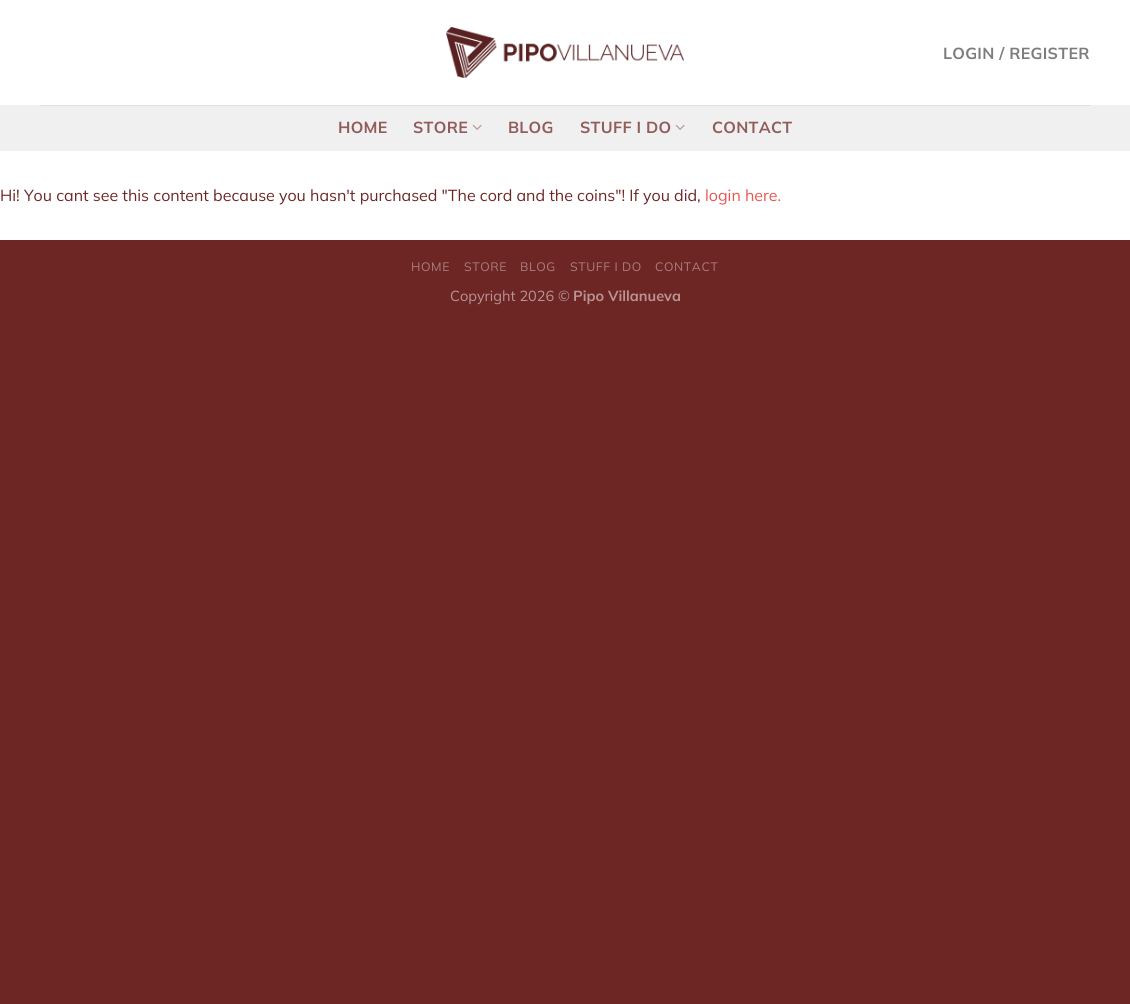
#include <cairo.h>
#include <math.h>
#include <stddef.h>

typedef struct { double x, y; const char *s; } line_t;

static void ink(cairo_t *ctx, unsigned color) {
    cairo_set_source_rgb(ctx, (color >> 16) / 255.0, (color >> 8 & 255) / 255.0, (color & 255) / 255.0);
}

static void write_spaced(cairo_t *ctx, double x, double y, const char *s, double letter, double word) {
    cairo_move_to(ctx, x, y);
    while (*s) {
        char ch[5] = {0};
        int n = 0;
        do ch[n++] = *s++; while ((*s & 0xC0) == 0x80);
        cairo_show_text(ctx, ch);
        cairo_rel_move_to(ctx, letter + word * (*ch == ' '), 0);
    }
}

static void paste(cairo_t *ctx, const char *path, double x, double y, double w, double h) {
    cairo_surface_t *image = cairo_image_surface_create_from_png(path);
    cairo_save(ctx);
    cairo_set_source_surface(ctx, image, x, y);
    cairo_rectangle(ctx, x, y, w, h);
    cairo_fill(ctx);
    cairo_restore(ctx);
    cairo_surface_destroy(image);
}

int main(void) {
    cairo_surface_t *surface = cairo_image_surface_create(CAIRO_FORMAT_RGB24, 1130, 1004);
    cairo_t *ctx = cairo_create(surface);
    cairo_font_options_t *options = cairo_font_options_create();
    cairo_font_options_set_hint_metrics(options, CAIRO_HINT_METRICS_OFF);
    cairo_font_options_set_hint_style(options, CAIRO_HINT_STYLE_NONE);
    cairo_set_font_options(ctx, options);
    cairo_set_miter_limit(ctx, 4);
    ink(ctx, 0x6E2625);
    cairo_paint(ctx);
    ink(ctx, 0xFFFFFF);
    cairo_rectangle(ctx, 0, 0, 1130, 240);
    cairo_fill(ctx);
    paste(ctx, "media/1.png", 446, 27, 238, 51);
    cairo_select_font_face(ctx, "Mulish", CAIRO_FONT_SLANT_NORMAL, CAIRO_FONT_WEIGHT_BOLD);
    cairo_set_font_size(ctx, 16);
    ink(ctx, 0x7D7D7D);
    write_spaced(ctx, 943, 59, "LOGIN / REGISTER", 0.3, 0);
    ink(ctx, 0xF0F0F0);
    cairo_rectangle(ctx, 0, 105, 1130, 46);
    cairo_fill(ctx);
    ink(ctx, 0xE3DCDC);
    cairo_rectangle(ctx, 40, 105, 1050, 1);
    cairo_fill(ctx);
    ink(ctx, 0x915D5C);
    write_spaced(ctx, 338, 133, "HOME", 0.3, 0);
    write_spaced(ctx, 413, 133, "STORE", 0.3, 0);
    paste(ctx, "media/2.png", 472, 124, 10, 6);
    write_spaced(ctx, 508, 133, "BLOG", 0.3, 0);
    write_spaced(ctx, 580, 133, "STUFF I DO", 0.3, 0);
    paste(ctx, "media/2.png", 675, 124, 10, 6);
    write_spaced(ctx, 712, 133, "CONTACT", 0.3, 0);
    cairo_select_font_face(ctx, "Mulish", CAIRO_FONT_SLANT_NORMAL, CAIRO_FONT_WEIGHT_NORMAL);
    ink(ctx, 0x6E2625);
    cairo_move_to(ctx, 0, 201);
    cairo_show_text(ctx, "Hi! You cant see this content because you hasn't purchased \"The cord and the coins\"! If you did,");
    ink(ctx, 0xED5351);
    cairo_move_to(ctx, 705, 201);
    cairo_show_text(ctx, "login here.");
    cairo_set_font_size(ctx, 12.25);
    ink(ctx, 0xA87D7C);
    {
        static const line_t items[] = {
            {411, 271, "HOME"},
            {464, 271, "STORE"},
            {520, 271, "BLOG"},
            {570, 271, "STUFF I DO"},
            {655, 271, "CONTACT"},
        };
        for (size_t i = 0; i < sizeof items / sizeof *items; i++) {
            write_spaced(ctx, items[i].x, items[i].y, items[i].s, 0.6, 0);
        }
    }
    cairo_set_font_size(ctx, 14.5);
    ink(ctx, 0xB79392);
    cairo_move_to(ctx, 450, 301);
    cairo_show_text(ctx, "Copyright 2026 ©");
    cairo_select_font_face(ctx, "Mulish", CAIRO_FONT_SLANT_NORMAL, CAIRO_FONT_WEIGHT_BOLD);
    cairo_move_to(ctx, 573, 301);
    cairo_show_text(ctx, "Pipo Villanueva");
    cairo_surface_write_to_png(surface, "image.png");
    cairo_font_options_destroy(options);
    cairo_destroy(ctx);
    cairo_surface_destroy(surface);
    return 0;
}
